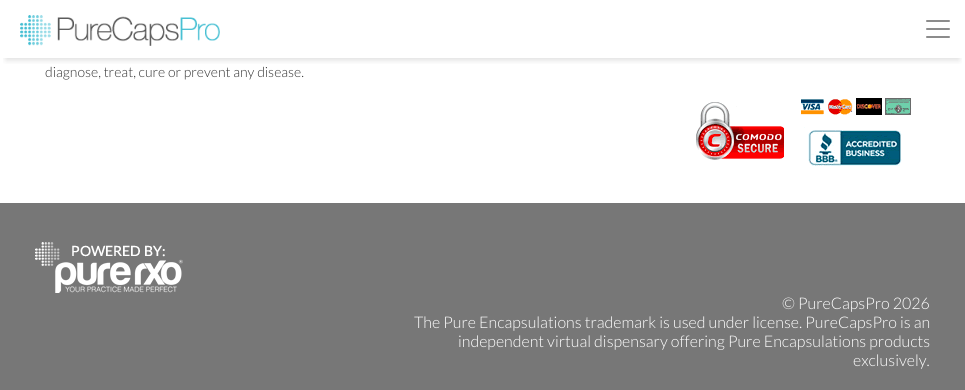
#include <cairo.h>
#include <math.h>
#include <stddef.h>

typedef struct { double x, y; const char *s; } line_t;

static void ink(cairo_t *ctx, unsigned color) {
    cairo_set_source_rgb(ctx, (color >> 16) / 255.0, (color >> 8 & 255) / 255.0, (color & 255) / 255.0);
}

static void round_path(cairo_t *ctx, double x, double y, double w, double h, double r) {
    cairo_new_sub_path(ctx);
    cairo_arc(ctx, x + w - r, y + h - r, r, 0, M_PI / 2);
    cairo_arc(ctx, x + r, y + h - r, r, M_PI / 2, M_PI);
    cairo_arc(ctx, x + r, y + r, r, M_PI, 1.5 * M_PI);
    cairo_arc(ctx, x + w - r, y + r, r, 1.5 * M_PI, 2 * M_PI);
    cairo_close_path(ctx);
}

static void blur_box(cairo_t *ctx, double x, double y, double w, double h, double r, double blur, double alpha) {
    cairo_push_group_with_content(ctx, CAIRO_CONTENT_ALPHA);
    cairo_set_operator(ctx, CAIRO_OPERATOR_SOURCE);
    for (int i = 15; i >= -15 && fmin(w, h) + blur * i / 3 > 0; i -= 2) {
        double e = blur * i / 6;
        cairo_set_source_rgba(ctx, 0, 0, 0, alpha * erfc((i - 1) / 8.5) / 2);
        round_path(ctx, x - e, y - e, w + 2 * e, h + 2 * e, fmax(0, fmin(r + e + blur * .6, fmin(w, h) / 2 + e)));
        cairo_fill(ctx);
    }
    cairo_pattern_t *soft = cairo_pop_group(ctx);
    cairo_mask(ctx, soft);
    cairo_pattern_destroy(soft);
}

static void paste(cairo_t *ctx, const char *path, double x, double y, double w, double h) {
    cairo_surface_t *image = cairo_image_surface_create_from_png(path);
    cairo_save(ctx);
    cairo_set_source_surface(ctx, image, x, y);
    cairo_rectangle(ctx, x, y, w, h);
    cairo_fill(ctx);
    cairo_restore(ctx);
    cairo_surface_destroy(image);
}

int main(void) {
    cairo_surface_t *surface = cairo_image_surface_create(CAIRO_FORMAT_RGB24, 965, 390);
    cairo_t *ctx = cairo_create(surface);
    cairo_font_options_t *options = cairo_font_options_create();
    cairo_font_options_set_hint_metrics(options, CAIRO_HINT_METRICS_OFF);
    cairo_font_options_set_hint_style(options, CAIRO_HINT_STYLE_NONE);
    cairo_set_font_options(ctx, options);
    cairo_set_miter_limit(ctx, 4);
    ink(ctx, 0xFFFFFF);
    cairo_paint(ctx);
    cairo_save(ctx);
    cairo_rectangle(ctx, 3, 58, 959, 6);
    cairo_clip(ctx);
    ink(ctx, 0x444444);
    blur_box(ctx, 6, 14, 953, 46, 0, 3, 0.18);
    cairo_restore(ctx);
    paste(ctx, "media/1.png", 20, 15, 200, 31);
    paste(ctx, "media/2.png", 926, 20, 24, 18);
    cairo_select_font_face(ctx, "Lato Light", CAIRO_FONT_SLANT_NORMAL, CAIRO_FONT_WEIGHT_NORMAL);
    cairo_set_font_size(ctx, 14);
    ink(ctx, 0x333333);
    cairo_move_to(ctx, 45, 77);
    cairo_show_text(ctx, "diagnose, treat, cure or prevent any disease.");
    paste(ctx, "media/3.png", 696, 98, 216, 68);
    ink(ctx, 0x777777);
    cairo_rectangle(ctx, 0, 203, 965, 187);
    cairo_fill(ctx);
    paste(ctx, "media/4.png", 35, 242, 148, 51);
    cairo_set_font_size(ctx, 16);
    ink(ctx, 0xFFFFFF);
    {
        static const line_t items[] = {
            {782, 309, "© PureCapsPro 2026"},
            {414, 328, "The Pure Encapsulations trademark is used under license. PureCapsPro is an"},
            {458, 347, "independent virtual dispensary offering Pure Encapsulations products"},
            {853, 366, "exclusively."},
        };
        for (size_t i = 0; i < sizeof items / sizeof *items; i++) {
            cairo_move_to(ctx, items[i].x, items[i].y);
            cairo_show_text(ctx, items[i].s);
        }
    }
    cairo_surface_write_to_png(surface, "image.png");
    cairo_font_options_destroy(options);
    cairo_destroy(ctx);
    cairo_surface_destroy(surface);
    return 0;
}
